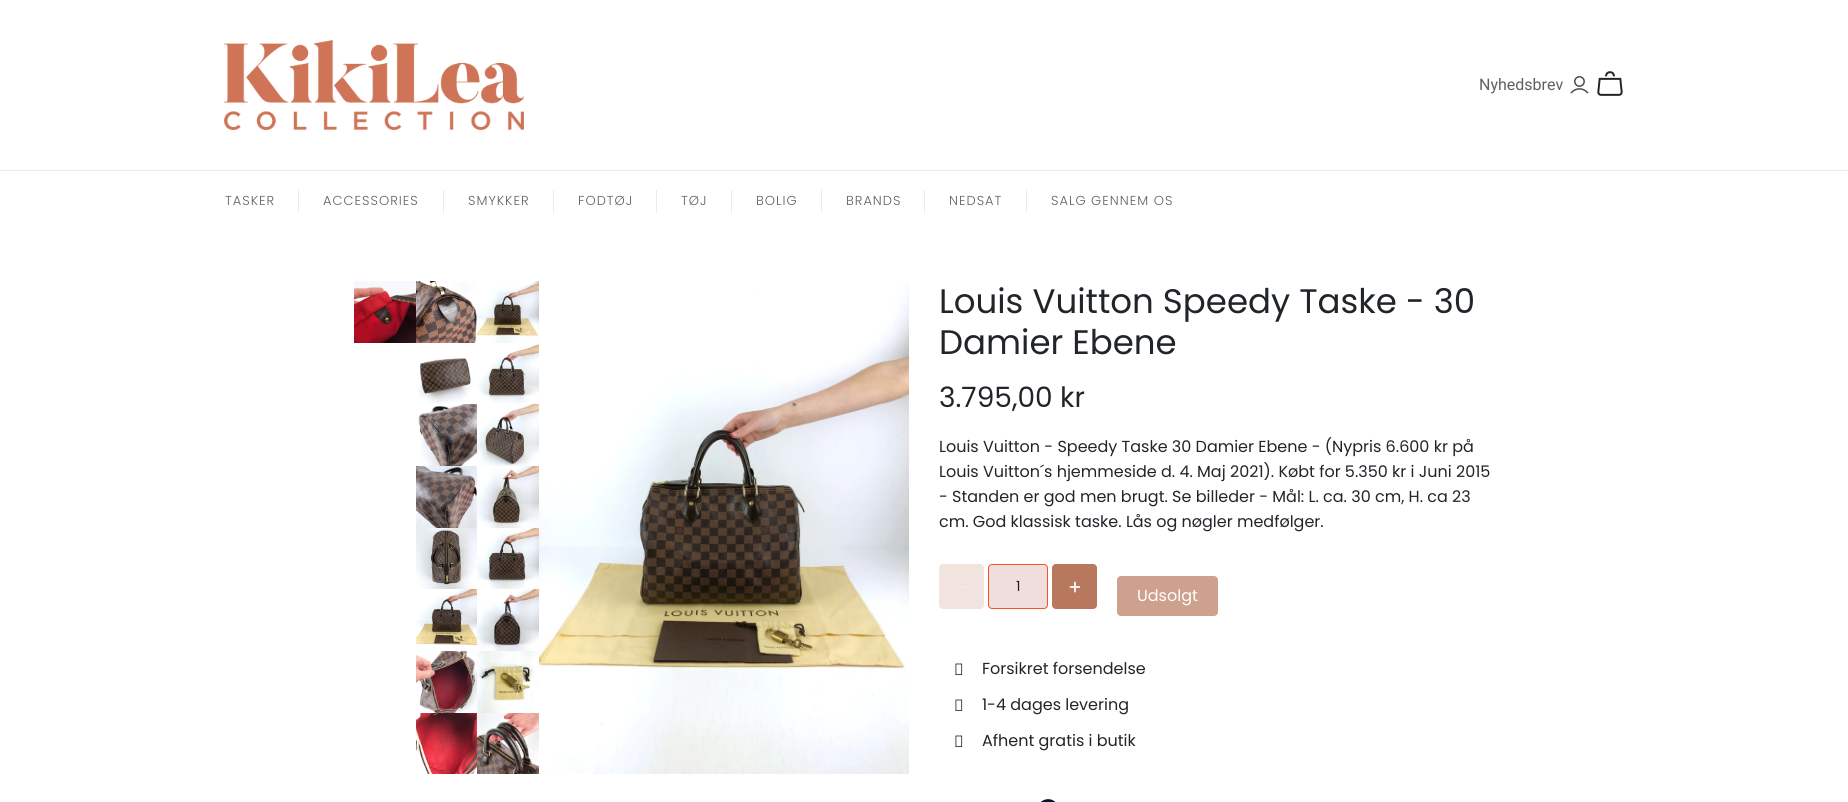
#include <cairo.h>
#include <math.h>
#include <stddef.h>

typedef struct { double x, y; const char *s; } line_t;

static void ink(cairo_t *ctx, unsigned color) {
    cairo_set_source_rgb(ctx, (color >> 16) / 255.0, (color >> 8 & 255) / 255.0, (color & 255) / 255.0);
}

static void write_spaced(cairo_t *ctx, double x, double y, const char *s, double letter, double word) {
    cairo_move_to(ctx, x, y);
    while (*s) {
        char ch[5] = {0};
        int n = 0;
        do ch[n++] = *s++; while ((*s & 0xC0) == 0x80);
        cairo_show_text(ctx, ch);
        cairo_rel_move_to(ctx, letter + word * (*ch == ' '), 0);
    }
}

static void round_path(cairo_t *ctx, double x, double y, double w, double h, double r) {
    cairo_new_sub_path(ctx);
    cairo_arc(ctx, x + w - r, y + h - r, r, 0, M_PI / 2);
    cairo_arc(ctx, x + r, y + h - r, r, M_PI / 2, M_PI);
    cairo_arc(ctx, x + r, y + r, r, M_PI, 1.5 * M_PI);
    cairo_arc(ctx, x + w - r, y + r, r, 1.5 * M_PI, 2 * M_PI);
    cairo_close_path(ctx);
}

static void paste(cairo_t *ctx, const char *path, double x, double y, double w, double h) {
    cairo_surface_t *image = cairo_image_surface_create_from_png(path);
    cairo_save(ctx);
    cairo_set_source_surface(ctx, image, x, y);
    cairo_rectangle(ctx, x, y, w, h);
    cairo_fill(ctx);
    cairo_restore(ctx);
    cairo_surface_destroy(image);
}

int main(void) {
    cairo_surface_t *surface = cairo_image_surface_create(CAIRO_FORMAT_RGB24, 1848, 802);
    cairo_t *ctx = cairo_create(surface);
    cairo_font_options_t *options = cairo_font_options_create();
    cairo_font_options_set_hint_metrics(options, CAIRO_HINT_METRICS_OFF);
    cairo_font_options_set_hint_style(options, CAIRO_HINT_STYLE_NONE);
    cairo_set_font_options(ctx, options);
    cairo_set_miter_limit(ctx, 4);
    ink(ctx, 0xFFFFFF);
    cairo_paint(ctx);
    paste(ctx, "media/1.png", 224, 40, 300, 90);
    cairo_select_font_face(ctx, "Roboto", CAIRO_FONT_SLANT_NORMAL, CAIRO_FONT_WEIGHT_NORMAL);
    cairo_set_font_size(ctx, 16);
    ink(ctx, 0x606060);
    cairo_move_to(ctx, 1479, 90);
    cairo_show_text(ctx, "Nyhedsbrev");
    paste(ctx, "media/2.png", 1570, 76, 19, 18);
    paste(ctx, "media/3.png", 1597, 71, 26, 25);
    ink(ctx, 0xEBEBEB);
    cairo_rectangle(ctx, 0, 170, 1848, 1);
    cairo_fill(ctx);
    cairo_select_font_face(ctx, "Poppins Light", CAIRO_FONT_SLANT_NORMAL, CAIRO_FONT_WEIGHT_NORMAL);
    cairo_set_font_size(ctx, 13);
    ink(ctx, 0x606060);
    write_spaced(ctx, 225, 205, "TASKER", 1, 0);
    ink(ctx, 0xEBEBEB);
    cairo_rectangle(ctx, 298, 190, 1, 23);
    cairo_fill(ctx);
    ink(ctx, 0x606060);
    write_spaced(ctx, 323, 205, "ACCESSORIES", 1, 0);
    ink(ctx, 0xEBEBEB);
    cairo_rectangle(ctx, 443, 190, 1, 23);
    cairo_fill(ctx);
    ink(ctx, 0x606060);
    write_spaced(ctx, 468, 205, "SMYKKER", 1, 0);
    ink(ctx, 0xEBEBEB);
    cairo_rectangle(ctx, 553, 190, 1, 23);
    cairo_fill(ctx);
    ink(ctx, 0x606060);
    write_spaced(ctx, 578, 205, "FODTØJ", 1, 0);
    ink(ctx, 0xEBEBEB);
    cairo_rectangle(ctx, 656, 190, 1, 23);
    cairo_fill(ctx);
    ink(ctx, 0x606060);
    write_spaced(ctx, 681, 205, "TØJ", 1, 0);
    ink(ctx, 0xEBEBEB);
    cairo_rectangle(ctx, 731, 190, 1, 23);
    cairo_fill(ctx);
    ink(ctx, 0x606060);
    write_spaced(ctx, 756, 205, "BOLIG", 1, 0);
    ink(ctx, 0xEBEBEB);
    cairo_rectangle(ctx, 821, 190, 1, 23);
    cairo_fill(ctx);
    ink(ctx, 0x606060);
    write_spaced(ctx, 846, 205, "BRANDS", 1, 0);
    ink(ctx, 0xEBEBEB);
    cairo_rectangle(ctx, 924, 190, 1, 23);
    cairo_fill(ctx);
    ink(ctx, 0x606060);
    write_spaced(ctx, 949, 205, "NEDSAT", 1, 0);
    ink(ctx, 0xEBEBEB);
    cairo_rectangle(ctx, 1026, 190, 1, 23);
    cairo_fill(ctx);
    ink(ctx, 0x606060);
    write_spaced(ctx, 1051, 205, "SALG GENNEM OS", 1, 0);
    paste(ctx, "media/4.png", 354, 281, 62, 62);
    paste(ctx, "media/5.png", 416, 281, 61, 62);
    paste(ctx, "media/6.png", 477, 281, 62, 62);
    paste(ctx, "media/7.png", 417, 358, 57, 46);
    paste(ctx, "media/8.png", 477, 344, 62, 60);
    paste(ctx, "media/9.png", 418, 404, 59, 62);
    paste(ctx, "media/10.png", 477, 404, 62, 62);
    paste(ctx, "media/11.png", 416, 466, 61, 62);
    paste(ctx, "media/12.png", 477, 466, 62, 62);
    paste(ctx, "media/13.png", 416, 528, 61, 61);
    paste(ctx, "media/14.png", 477, 528, 62, 61);
    paste(ctx, "media/15.png", 416, 589, 61, 62);
    paste(ctx, "media/16.png", 477, 589, 62, 62);
    paste(ctx, "media/17.png", 416, 651, 61, 62);
    paste(ctx, "media/18.png", 477, 651, 62, 62);
    paste(ctx, "media/19.png", 416, 713, 61, 61);
    paste(ctx, "media/20.png", 477, 713, 62, 61);
    paste(ctx, "media/21.png", 539, 283, 370, 491);
    cairo_select_font_face(ctx, "Poppins", CAIRO_FONT_SLANT_NORMAL, CAIRO_FONT_WEIGHT_NORMAL);
    cairo_set_font_size(ctx, 34);
    ink(ctx, 0x212529);
    cairo_move_to(ctx, 939, 313);
    cairo_show_text(ctx, "Louis Vuitton Speedy Taske - 30");
    cairo_move_to(ctx, 939, 354);
    cairo_show_text(ctx, "Damier Ebene");
    cairo_set_font_size(ctx, 28);
    cairo_move_to(ctx, 939, 407);
    cairo_show_text(ctx, "3.795,00 kr");
    cairo_set_font_size(ctx, 16);
    {
        static const line_t items[] = {
            {939, 452, "Louis Vuitton - Speedy Taske 30 Damier Ebene - (Nypris 6.600 kr på"},
            {939, 477, "Louis Vuitton´s hjemmeside d. 4. Maj 2021). Købt for 5.350 kr i Juni 2015"},
            {939, 502, "- Standen er god men brugt. Se billeder - Mål: L. ca. 30 cm, H. ca 23"},
            {939, 527, "cm. God klassisk taske. Lås og nøgler medfølger."},
        };
        for (size_t i = 0; i < sizeof items / sizeof *items; i++) {
            cairo_move_to(ctx, items[i].x, items[i].y);
            cairo_show_text(ctx, items[i].s);
        }
    }
    ink(ctx, 0xF1E4DF);
    round_path(ctx, 939, 564, 45, 45, 4);
    cairo_fill(ctx);
    ink(ctx, 0xF3E9E4);
    cairo_rectangle(ctx, 957, 586, 10, 2);
    cairo_fill(ctx);
    ink(ctx, 0xF0DDDD);
    round_path(ctx, 988.5, 564.5, 59, 44, 3.5);
    cairo_fill_preserve(ctx);
    ink(ctx, 0xFA541C);
    cairo_set_line_width(ctx, 1);
    cairo_stroke(ctx);
    cairo_set_font_size(ctx, 14);
    ink(ctx, 0x222222);
    cairo_move_to(ctx, 1016, 591);
    cairo_show_text(ctx, "1");
    ink(ctx, 0xB8785D);
    round_path(ctx, 1052, 564, 45, 45, 4);
    cairo_fill(ctx);
    paste(ctx, "media/22.png", 1069, 581, 11, 12);
    ink(ctx, 0xCDA18E);
    round_path(ctx, 1117, 576, 101, 40, 4);
    cairo_fill(ctx);
    cairo_set_font_size(ctx, 16);
    ink(ctx, 0xFFFFFF);
    cairo_move_to(ctx, 1137, 601);
    cairo_show_text(ctx, "Udsolgt");
    paste(ctx, "media/23.png", 955, 663, 8, 12);
    ink(ctx, 0x212529);
    cairo_move_to(ctx, 982, 674);
    cairo_show_text(ctx, "Forsikret forsendelse");
    paste(ctx, "media/23.png", 955, 699, 8, 12);
    cairo_move_to(ctx, 982, 710);
    cairo_show_text(ctx, "1-4 dages levering");
    paste(ctx, "media/23.png", 955, 735, 8, 12);
    cairo_move_to(ctx, 982, 746);
    cairo_show_text(ctx, "Afhent gratis i butik");
    paste(ctx, "media/24.png", 1040, 799, 16, 3);
    cairo_surface_write_to_png(surface, "image.png");
    cairo_font_options_destroy(options);
    cairo_destroy(ctx);
    cairo_surface_destroy(surface);
    return 0;
}
